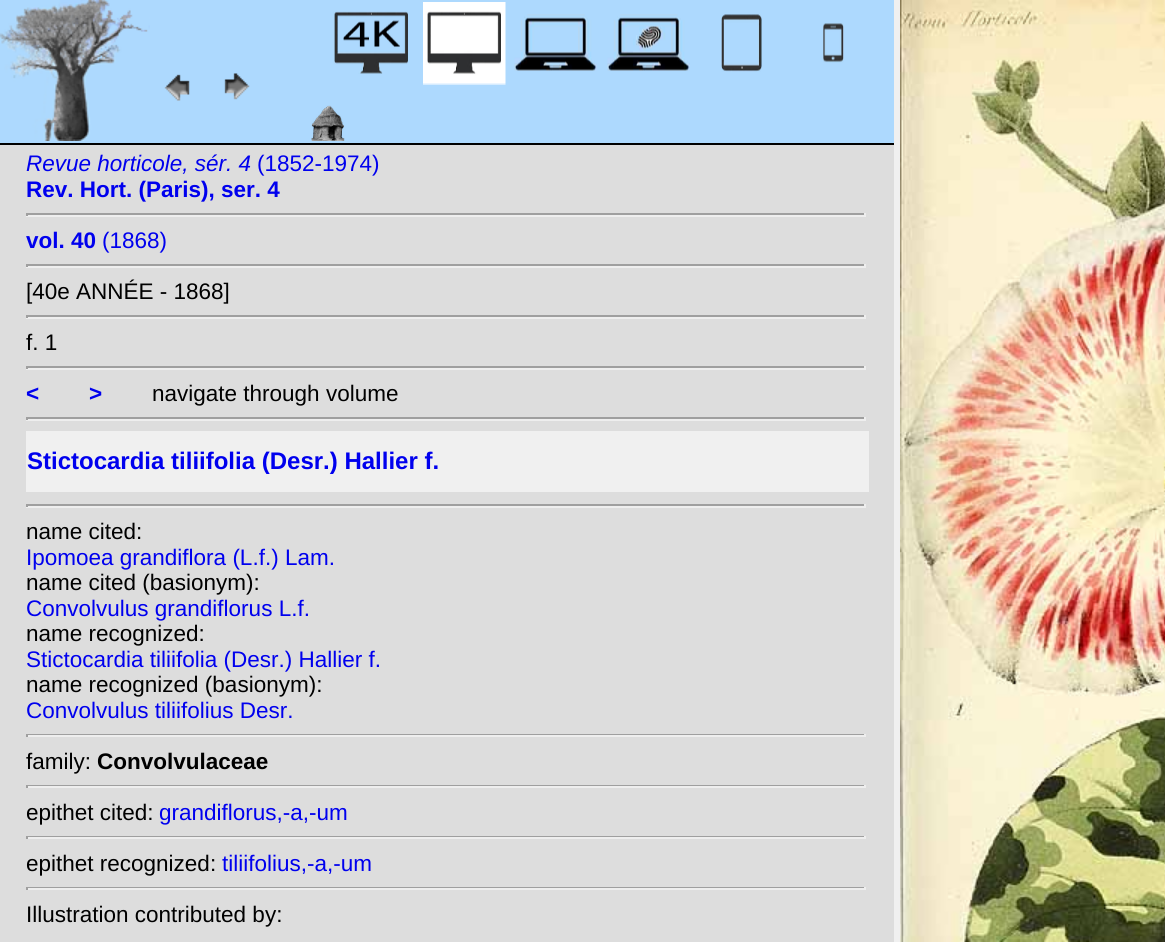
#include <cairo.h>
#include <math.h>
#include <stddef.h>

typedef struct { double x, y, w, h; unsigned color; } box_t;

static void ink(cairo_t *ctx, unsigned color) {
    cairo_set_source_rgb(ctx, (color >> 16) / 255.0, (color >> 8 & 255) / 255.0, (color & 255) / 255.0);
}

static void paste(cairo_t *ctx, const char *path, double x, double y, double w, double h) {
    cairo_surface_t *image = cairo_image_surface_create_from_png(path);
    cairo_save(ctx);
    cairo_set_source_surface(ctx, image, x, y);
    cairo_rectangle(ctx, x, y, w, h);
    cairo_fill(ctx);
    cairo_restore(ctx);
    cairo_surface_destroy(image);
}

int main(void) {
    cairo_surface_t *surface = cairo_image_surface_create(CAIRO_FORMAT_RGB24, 1165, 942);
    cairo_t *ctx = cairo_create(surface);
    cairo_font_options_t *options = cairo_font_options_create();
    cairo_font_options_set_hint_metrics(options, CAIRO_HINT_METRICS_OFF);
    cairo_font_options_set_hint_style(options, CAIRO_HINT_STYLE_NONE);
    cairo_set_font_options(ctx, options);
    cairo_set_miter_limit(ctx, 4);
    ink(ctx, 0xF0F0F0);
    cairo_paint(ctx);
    {
        static const box_t items[] = {
            {0, 145, 894, 797, 0xDDDDDD},
            {0, 0, 894, 143, 0xADD9FE},
            {0, 143, 894, 2, 0x000000},
        };
        for (size_t i = 0; i < sizeof items / sizeof *items; i++) {
            ink(ctx, items[i].color);
            cairo_rectangle(ctx, items[i].x, items[i].y, items[i].w, items[i].h);
            cairo_fill(ctx);
        }
    }
    paste(ctx, "media/1.png", 0, 0, 150, 141);
    paste(ctx, "media/2.png", 164, 74, 26, 27);
    paste(ctx, "media/3.png", 224, 73, 26, 27);
    paste(ctx, "media/4.png", 333, 11, 75, 63);
    paste(ctx, "media/5.png", 423, 2, 83, 83);
    paste(ctx, "media/6.png", 514, 14, 83, 57);
    paste(ctx, "media/7.png", 607, 14, 83, 57);
    paste(ctx, "media/8.png", 721, 14, 41, 58);
    paste(ctx, "media/9.png", 823, 23, 21, 40);
    paste(ctx, "media/10.png", 311, 105, 34, 36);
    cairo_select_font_face(ctx, "Liberation Sans", CAIRO_FONT_SLANT_ITALIC, CAIRO_FONT_WEIGHT_NORMAL);
    cairo_set_font_size(ctx, 22.5);
    ink(ctx, 0x0000EE);
    cairo_move_to(ctx, 26, 171);
    cairo_show_text(ctx, "Revue horticole, sér. 4");
    cairo_select_font_face(ctx, "Liberation Sans", CAIRO_FONT_SLANT_NORMAL, CAIRO_FONT_WEIGHT_NORMAL);
    cairo_move_to(ctx, 257, 171);
    cairo_show_text(ctx, "(1852-1974)");
    cairo_select_font_face(ctx, "Liberation Sans", CAIRO_FONT_SLANT_NORMAL, CAIRO_FONT_WEIGHT_BOLD);
    cairo_move_to(ctx, 26, 197);
    cairo_show_text(ctx, "Rev. Hort. (Paris), ser. 4");
    {
        static const box_t items[] = {
            {26, 213, 840, 2, 0x9F9F9F},
            {864, 213, 2, 3, 0xEEEEEE},
            {26, 215, 840, 2, 0xEEEEEE},
            {26, 213, 2, 3, 0x9F9F9F},
        };
        for (size_t i = 0; i < sizeof items / sizeof *items; i++) {
            ink(ctx, items[i].color);
            cairo_rectangle(ctx, items[i].x, items[i].y, items[i].w, items[i].h);
            cairo_fill(ctx);
        }
    }
    ink(ctx, 0x0000EE);
    cairo_move_to(ctx, 26, 248);
    cairo_show_text(ctx, "vol. 40");
    cairo_select_font_face(ctx, "Liberation Sans", CAIRO_FONT_SLANT_NORMAL, CAIRO_FONT_WEIGHT_NORMAL);
    cairo_move_to(ctx, 102, 248);
    cairo_show_text(ctx, "(1868)");
    {
        static const box_t items[] = {
            {26, 264, 840, 2, 0x9F9F9F},
            {864, 264, 2, 3, 0xEEEEEE},
            {26, 266, 840, 2, 0xEEEEEE},
            {26, 264, 2, 3, 0x9F9F9F},
        };
        for (size_t i = 0; i < sizeof items / sizeof *items; i++) {
            ink(ctx, items[i].color);
            cairo_rectangle(ctx, items[i].x, items[i].y, items[i].w, items[i].h);
            cairo_fill(ctx);
        }
    }
    ink(ctx, 0x000000);
    cairo_move_to(ctx, 26, 299);
    cairo_show_text(ctx, "[40e ANNÉE - 1868]");
    {
        static const box_t items[] = {
            {26, 315, 840, 2, 0x9F9F9F},
            {864, 315, 2, 3, 0xEEEEEE},
            {26, 317, 840, 2, 0xEEEEEE},
            {26, 315, 2, 3, 0x9F9F9F},
        };
        for (size_t i = 0; i < sizeof items / sizeof *items; i++) {
            ink(ctx, items[i].color);
            cairo_rectangle(ctx, items[i].x, items[i].y, items[i].w, items[i].h);
            cairo_fill(ctx);
        }
    }
    ink(ctx, 0x000000);
    cairo_move_to(ctx, 26, 350);
    cairo_show_text(ctx, "f. 1");
    {
        static const box_t items[] = {
            {26, 366, 840, 2, 0x9F9F9F},
            {864, 366, 2, 3, 0xEEEEEE},
            {26, 368, 840, 2, 0xEEEEEE},
            {26, 366, 2, 3, 0x9F9F9F},
        };
        for (size_t i = 0; i < sizeof items / sizeof *items; i++) {
            ink(ctx, items[i].color);
            cairo_rectangle(ctx, items[i].x, items[i].y, items[i].w, items[i].h);
            cairo_fill(ctx);
        }
    }
    cairo_select_font_face(ctx, "Liberation Sans", CAIRO_FONT_SLANT_NORMAL, CAIRO_FONT_WEIGHT_BOLD);
    ink(ctx, 0x0000EE);
    cairo_move_to(ctx, 26, 401);
    cairo_show_text(ctx, "<");
    cairo_move_to(ctx, 89, 401);
    cairo_show_text(ctx, ">");
    cairo_select_font_face(ctx, "Liberation Sans", CAIRO_FONT_SLANT_NORMAL, CAIRO_FONT_WEIGHT_NORMAL);
    ink(ctx, 0x000000);
    cairo_move_to(ctx, 152, 401);
    cairo_show_text(ctx, "navigate through volume");
    {
        static const box_t items[] = {
            {26, 417, 840, 2, 0x9F9F9F},
            {864, 417, 2, 3, 0xEEEEEE},
            {26, 419, 840, 2, 0xEEEEEE},
            {26, 417, 2, 3, 0x9F9F9F},
            {26, 431, 843, 61, 0xF0F0F0},
        };
        for (size_t i = 0; i < sizeof items / sizeof *items; i++) {
            ink(ctx, items[i].color);
            cairo_rectangle(ctx, items[i].x, items[i].y, items[i].w, items[i].h);
            cairo_fill(ctx);
        }
    }
    cairo_select_font_face(ctx, "Liberation Sans", CAIRO_FONT_SLANT_NORMAL, CAIRO_FONT_WEIGHT_BOLD);
    cairo_set_font_size(ctx, 24);
    ink(ctx, 0x0000EE);
    cairo_move_to(ctx, 27, 469);
    cairo_show_text(ctx, "Stictocardia tiliifolia (Desr.) Hallier f.");
    {
        static const box_t items[] = {
            {26, 504, 840, 2, 0x9F9F9F},
            {864, 504, 2, 3, 0xEEEEEE},
            {26, 506, 840, 2, 0xEEEEEE},
            {26, 504, 2, 3, 0x9F9F9F},
        };
        for (size_t i = 0; i < sizeof items / sizeof *items; i++) {
            ink(ctx, items[i].color);
            cairo_rectangle(ctx, items[i].x, items[i].y, items[i].w, items[i].h);
            cairo_fill(ctx);
        }
    }
    cairo_select_font_face(ctx, "Liberation Sans", CAIRO_FONT_SLANT_NORMAL, CAIRO_FONT_WEIGHT_NORMAL);
    cairo_set_font_size(ctx, 22.5);
    ink(ctx, 0x000000);
    cairo_move_to(ctx, 26, 539);
    cairo_show_text(ctx, "name cited:");
    ink(ctx, 0x0000EE);
    cairo_move_to(ctx, 26, 565);
    cairo_show_text(ctx, "Ipomoea grandiflora (L.f.) Lam.");
    ink(ctx, 0x000000);
    cairo_move_to(ctx, 26, 590);
    cairo_show_text(ctx, "name cited (basionym):");
    ink(ctx, 0x0000EE);
    cairo_move_to(ctx, 26, 616);
    cairo_show_text(ctx, "Convolvulus grandiflorus L.f.");
    ink(ctx, 0x000000);
    cairo_move_to(ctx, 26, 641);
    cairo_show_text(ctx, "name recognized:");
    ink(ctx, 0x0000EE);
    cairo_move_to(ctx, 26, 667);
    cairo_show_text(ctx, "Stictocardia tiliifolia (Desr.) Hallier f.");
    ink(ctx, 0x000000);
    cairo_move_to(ctx, 26, 692);
    cairo_show_text(ctx, "name recognized (basionym):");
    ink(ctx, 0x0000EE);
    cairo_move_to(ctx, 26, 718);
    cairo_show_text(ctx, "Convolvulus tiliifolius Desr.");
    {
        static const box_t items[] = {
            {26, 734, 840, 1, 0x9F9F9F},
            {864, 734, 2, 3, 0xEEEEEE},
            {26, 735, 840, 2, 0xEEEEEE},
            {26, 734, 2, 3, 0x9F9F9F},
        };
        for (size_t i = 0; i < sizeof items / sizeof *items; i++) {
            ink(ctx, items[i].color);
            cairo_rectangle(ctx, items[i].x, items[i].y, items[i].w, items[i].h);
            cairo_fill(ctx);
        }
    }
    ink(ctx, 0x000000);
    cairo_move_to(ctx, 26, 769);
    cairo_show_text(ctx, "family:");
    cairo_select_font_face(ctx, "Liberation Sans", CAIRO_FONT_SLANT_NORMAL, CAIRO_FONT_WEIGHT_BOLD);
    cairo_move_to(ctx, 97, 769);
    cairo_show_text(ctx, "Convolvulaceae");
    {
        static const box_t items[] = {
            {26, 785, 840, 1, 0x9F9F9F},
            {864, 785, 2, 3, 0xEEEEEE},
            {26, 786, 840, 2, 0xEEEEEE},
            {26, 785, 2, 3, 0x9F9F9F},
        };
        for (size_t i = 0; i < sizeof items / sizeof *items; i++) {
            ink(ctx, items[i].color);
            cairo_rectangle(ctx, items[i].x, items[i].y, items[i].w, items[i].h);
            cairo_fill(ctx);
        }
    }
    cairo_select_font_face(ctx, "Liberation Sans", CAIRO_FONT_SLANT_NORMAL, CAIRO_FONT_WEIGHT_NORMAL);
    ink(ctx, 0x000000);
    cairo_move_to(ctx, 26, 820);
    cairo_show_text(ctx, "epithet cited:");
    ink(ctx, 0x0000EE);
    cairo_move_to(ctx, 159, 820);
    cairo_show_text(ctx, "grandiflorus,-a,-um");
    {
        static const box_t items[] = {
            {26, 836, 840, 1, 0x9F9F9F},
            {864, 836, 2, 3, 0xEEEEEE},
            {26, 837, 840, 2, 0xEEEEEE},
            {26, 836, 2, 3, 0x9F9F9F},
        };
        for (size_t i = 0; i < sizeof items / sizeof *items; i++) {
            ink(ctx, items[i].color);
            cairo_rectangle(ctx, items[i].x, items[i].y, items[i].w, items[i].h);
            cairo_fill(ctx);
        }
    }
    ink(ctx, 0x000000);
    cairo_move_to(ctx, 26, 871);
    cairo_show_text(ctx, "epithet recognized:");
    ink(ctx, 0x0000EE);
    cairo_move_to(ctx, 222, 871);
    cairo_show_text(ctx, "tiliifolius,-a,-um");
    {
        static const box_t items[] = {
            {26, 887, 840, 1, 0x9F9F9F},
            {864, 887, 2, 3, 0xEEEEEE},
            {26, 888, 840, 2, 0xEEEEEE},
            {26, 887, 2, 3, 0x9F9F9F},
        };
        for (size_t i = 0; i < sizeof items / sizeof *items; i++) {
            ink(ctx, items[i].color);
            cairo_rectangle(ctx, items[i].x, items[i].y, items[i].w, items[i].h);
            cairo_fill(ctx);
        }
    }
    ink(ctx, 0x000000);
    cairo_move_to(ctx, 26, 922);
    cairo_show_text(ctx, "Illustration contributed by:");
    paste(ctx, "media/11.png", 900, 0, 265, 942);
    cairo_surface_write_to_png(surface, "image.png");
    cairo_font_options_destroy(options);
    cairo_destroy(ctx);
    cairo_surface_destroy(surface);
    return 0;
}
